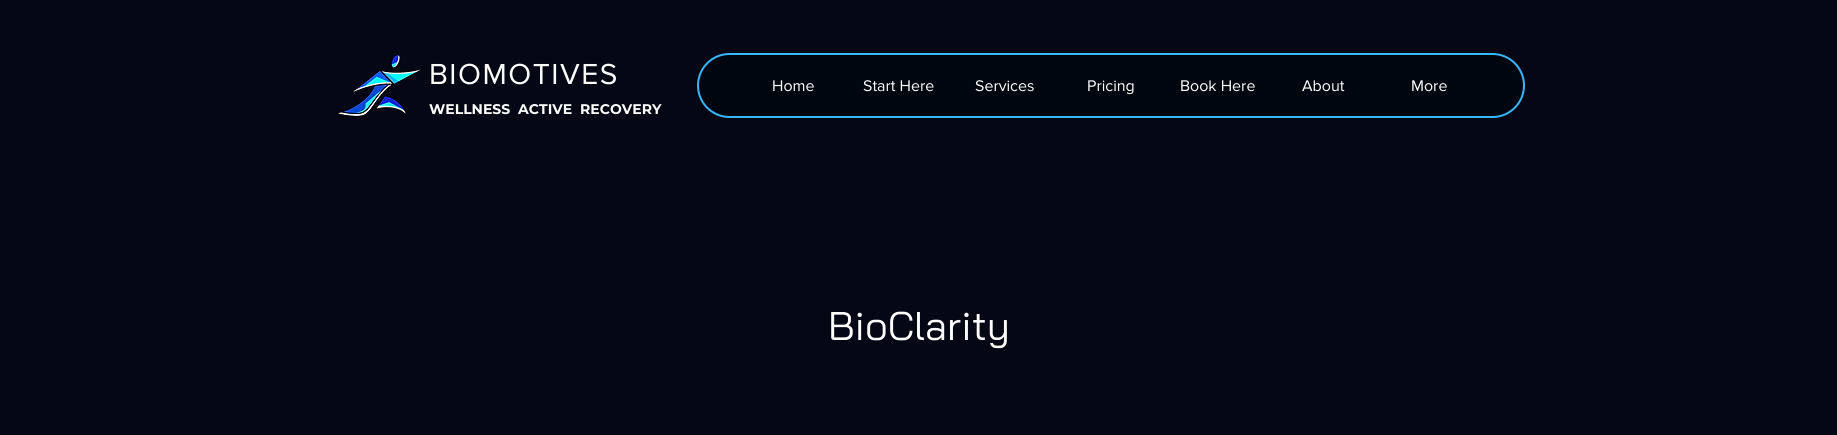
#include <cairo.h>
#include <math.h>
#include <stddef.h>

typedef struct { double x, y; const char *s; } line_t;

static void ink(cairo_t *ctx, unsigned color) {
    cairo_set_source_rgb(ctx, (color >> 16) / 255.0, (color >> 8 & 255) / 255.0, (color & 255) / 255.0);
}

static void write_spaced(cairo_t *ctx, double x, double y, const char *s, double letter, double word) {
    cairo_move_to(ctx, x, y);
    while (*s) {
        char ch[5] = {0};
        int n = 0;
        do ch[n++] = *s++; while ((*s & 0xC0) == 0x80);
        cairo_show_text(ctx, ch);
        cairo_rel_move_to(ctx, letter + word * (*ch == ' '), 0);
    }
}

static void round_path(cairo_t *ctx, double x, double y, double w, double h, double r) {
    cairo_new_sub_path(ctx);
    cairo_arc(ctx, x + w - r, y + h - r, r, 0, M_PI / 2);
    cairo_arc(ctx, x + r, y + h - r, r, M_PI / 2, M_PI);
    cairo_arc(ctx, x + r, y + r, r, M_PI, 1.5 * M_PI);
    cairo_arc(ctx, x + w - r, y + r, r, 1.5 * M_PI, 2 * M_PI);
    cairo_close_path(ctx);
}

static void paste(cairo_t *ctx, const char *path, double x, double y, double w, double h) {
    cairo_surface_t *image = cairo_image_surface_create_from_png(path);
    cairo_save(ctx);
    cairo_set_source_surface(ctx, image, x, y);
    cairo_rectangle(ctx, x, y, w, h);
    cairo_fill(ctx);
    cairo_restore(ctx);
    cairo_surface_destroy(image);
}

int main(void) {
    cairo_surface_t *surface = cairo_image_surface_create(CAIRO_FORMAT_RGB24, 1837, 435);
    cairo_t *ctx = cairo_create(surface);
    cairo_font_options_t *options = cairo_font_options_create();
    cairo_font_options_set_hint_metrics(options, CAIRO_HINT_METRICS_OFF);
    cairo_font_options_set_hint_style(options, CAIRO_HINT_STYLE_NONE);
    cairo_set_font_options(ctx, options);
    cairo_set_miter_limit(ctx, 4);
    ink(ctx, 0x050715);
    cairo_paint(ctx);
    paste(ctx, "media/1.png", 335, 54, 89, 63);
    cairo_select_font_face(ctx, "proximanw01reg", CAIRO_FONT_SLANT_NORMAL, CAIRO_FONT_WEIGHT_NORMAL);
    cairo_set_font_size(ctx, 30);
    ink(ctx, 0xFFFFFF);
    write_spaced(ctx, 429, 84, "BIOMOTIVES", 1.5, 0);
    ink(ctx, 0x00060F);
    round_path(ctx, 698, 54, 826, 63, 31.5);
    cairo_fill_preserve(ctx);
    ink(ctx, 0x38B6FF);
    cairo_stroke(ctx);
    cairo_set_font_size(ctx, 16);
    ink(ctx, 0xFFFFFF);
    {
        static const line_t items[] = {
            {772, 91, "Home"},
            {863, 91, "Start Here"},
            {975, 91, "Services"},
            {1087, 91, "Pricing"},
            {1180, 91, "Book Here"},
            {1302, 91, "About"},
            {1411, 91, "More"},
        };
        for (size_t i = 0; i < sizeof items / sizeof *items; i++) {
            cairo_move_to(ctx, items[i].x, items[i].y);
            cairo_show_text(ctx, items[i].s);
        }
    }
    cairo_select_font_face(ctx, "Montserrat", CAIRO_FONT_SLANT_NORMAL, CAIRO_FONT_WEIGHT_BOLD);
    cairo_set_font_size(ctx, 14);
    cairo_move_to(ctx, 429, 114);
    cairo_show_text(ctx, "WELLNESS  ACTIVE  RECOVERY");
    cairo_select_font_face(ctx, "Bai Jamjuree", CAIRO_FONT_SLANT_NORMAL, CAIRO_FONT_WEIGHT_NORMAL);
    cairo_set_font_size(ctx, 40);
    cairo_move_to(ctx, 828, 340);
    cairo_show_text(ctx, "BioClarity");
    cairo_surface_write_to_png(surface, "image.png");
    cairo_font_options_destroy(options);
    cairo_destroy(ctx);
    cairo_surface_destroy(surface);
    return 0;
}
